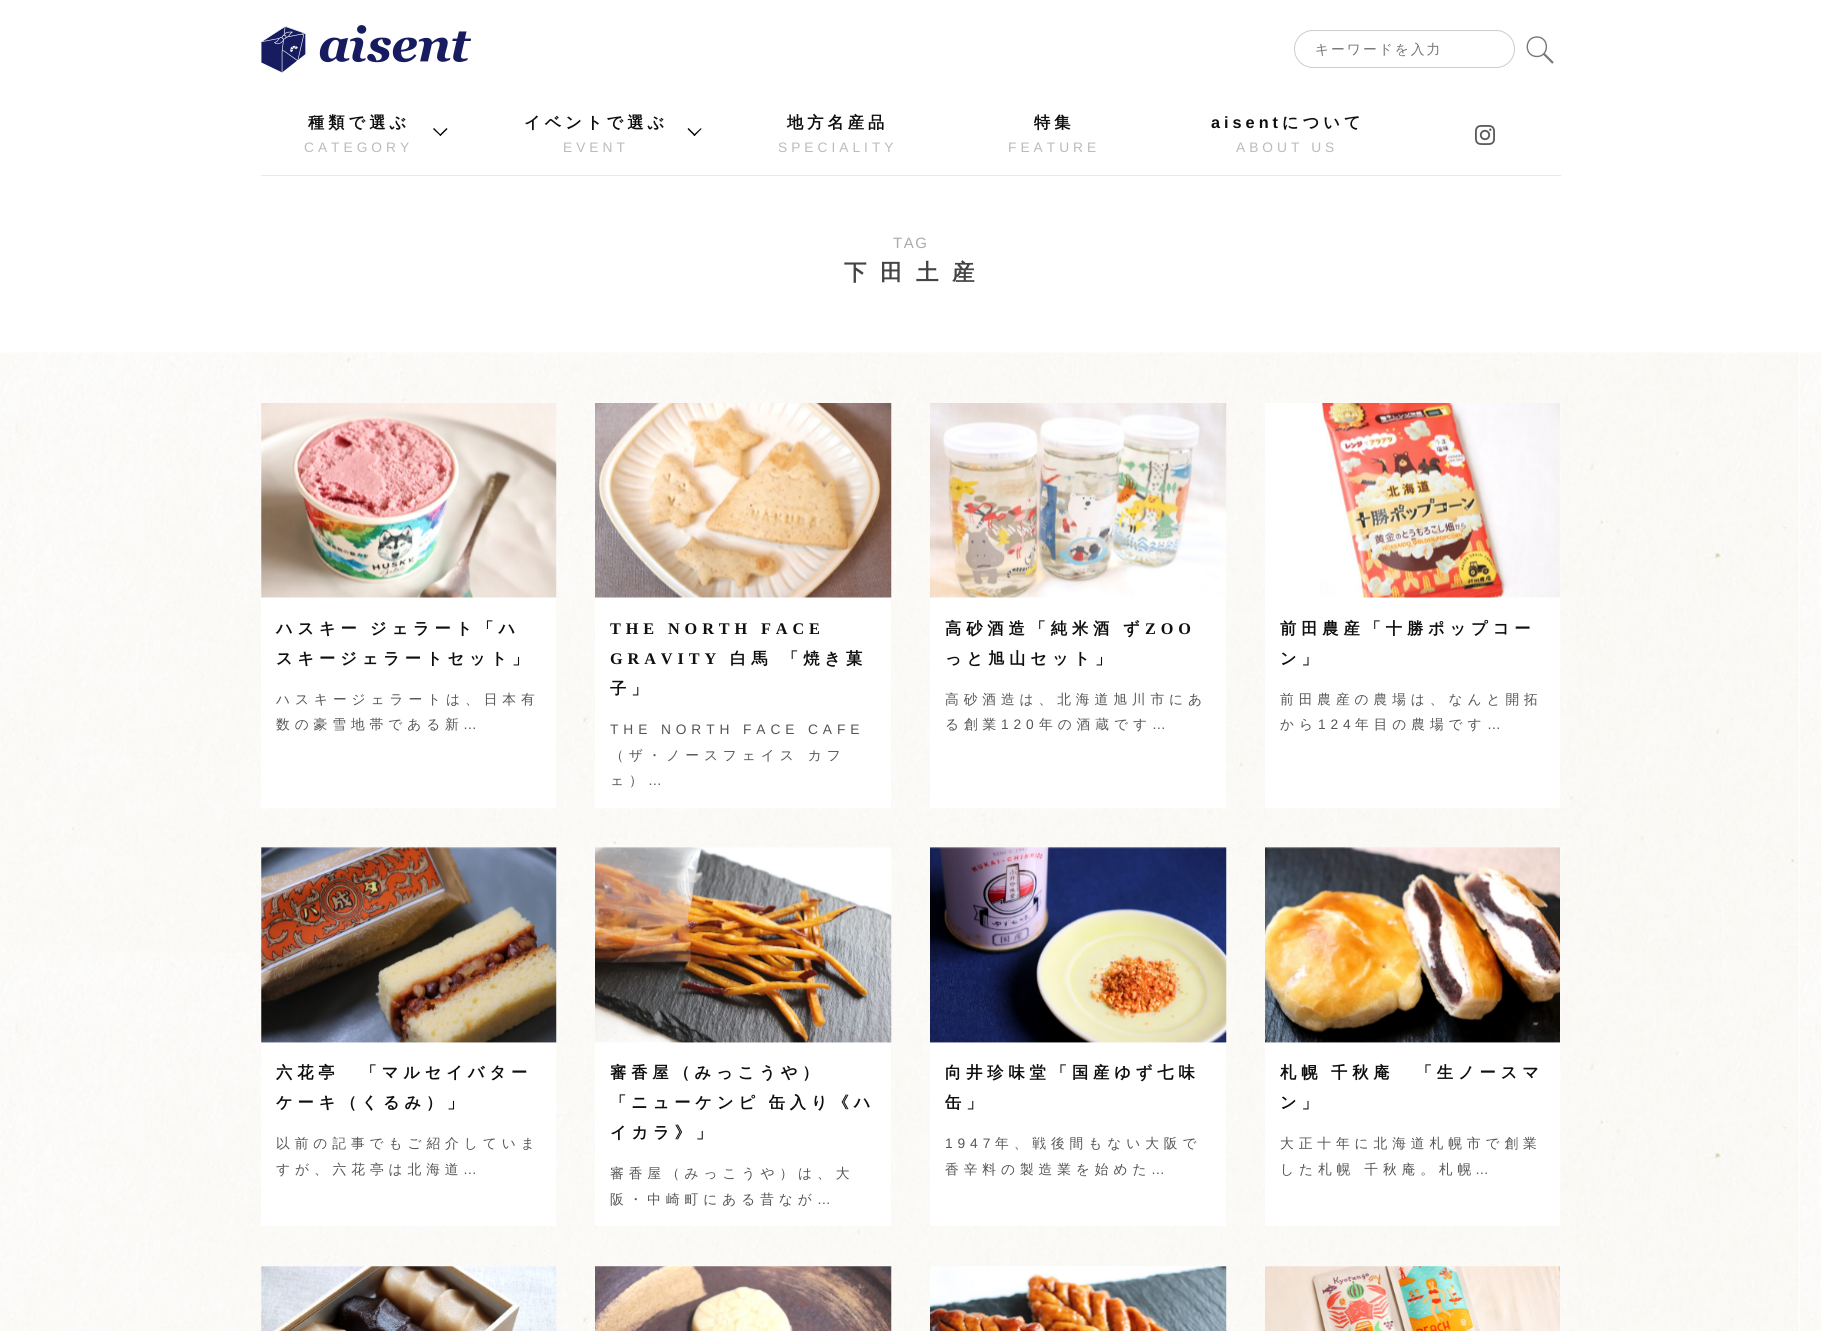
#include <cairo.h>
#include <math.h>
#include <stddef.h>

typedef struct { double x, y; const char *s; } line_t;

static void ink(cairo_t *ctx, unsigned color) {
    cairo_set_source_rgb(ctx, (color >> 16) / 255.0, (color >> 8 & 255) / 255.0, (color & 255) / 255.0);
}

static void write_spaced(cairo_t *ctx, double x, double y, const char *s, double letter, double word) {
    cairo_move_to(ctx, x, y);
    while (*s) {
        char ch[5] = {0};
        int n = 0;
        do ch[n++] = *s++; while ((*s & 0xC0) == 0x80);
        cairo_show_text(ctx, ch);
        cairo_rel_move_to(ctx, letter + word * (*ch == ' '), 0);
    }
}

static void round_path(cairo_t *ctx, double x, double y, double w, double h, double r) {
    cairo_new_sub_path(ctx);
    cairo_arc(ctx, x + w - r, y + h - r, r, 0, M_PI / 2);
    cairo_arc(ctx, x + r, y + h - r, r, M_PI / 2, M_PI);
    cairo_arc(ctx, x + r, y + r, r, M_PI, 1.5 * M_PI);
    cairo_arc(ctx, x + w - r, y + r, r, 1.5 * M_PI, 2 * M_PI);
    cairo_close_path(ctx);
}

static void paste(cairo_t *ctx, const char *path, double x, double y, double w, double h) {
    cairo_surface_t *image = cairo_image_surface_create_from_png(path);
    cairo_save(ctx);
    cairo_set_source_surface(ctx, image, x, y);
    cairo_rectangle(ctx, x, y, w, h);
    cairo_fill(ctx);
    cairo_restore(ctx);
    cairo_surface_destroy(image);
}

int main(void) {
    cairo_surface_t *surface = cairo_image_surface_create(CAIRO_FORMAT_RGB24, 1821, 1331);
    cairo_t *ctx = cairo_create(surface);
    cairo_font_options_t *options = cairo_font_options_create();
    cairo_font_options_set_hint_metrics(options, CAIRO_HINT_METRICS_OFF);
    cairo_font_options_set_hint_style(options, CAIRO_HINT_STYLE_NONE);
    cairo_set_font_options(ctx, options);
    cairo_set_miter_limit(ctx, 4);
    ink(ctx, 0xFFFFFF);
    cairo_paint(ctx);
    ink(ctx, 0xEAEAEA);
    cairo_rectangle(ctx, 261, 175, 1300, 1);
    cairo_fill(ctx);
    paste(ctx, "media/1.png", 261, 25, 210, 48);
    round_path(ctx, 1294.5, 30.5, 220, 37, 18.5);
    ink(ctx, 0xCCCCCC);
    cairo_set_line_width(ctx, 1);
    cairo_stroke(ctx);
    cairo_select_font_face(ctx, "WenQuanYi Zen Hei Medium", CAIRO_FONT_SLANT_NORMAL, CAIRO_FONT_WEIGHT_NORMAL);
    cairo_set_font_size(ctx, 13.75);
    ink(ctx, 0x757575);
    write_spaced(ctx, 1315, 54, "キーワードを入力", 2, 0);
    cairo_new_path(ctx);
    cairo_move_to(ctx, 1537, 37);
    cairo_curve_to(ctx, 1549.5, 37, 1549.5, 56.5, 1537, 56.5);
    cairo_curve_to(ctx, 1524, 56.5, 1524, 37, 1537, 37);
    cairo_close_path(ctx);
    ink(ctx, 0x777777);
    cairo_set_line_width(ctx, 1.4);
    cairo_stroke(ctx);
    cairo_new_path(ctx);
    cairo_move_to(ctx, 1553, 63);
    cairo_line_to(ctx, 1543.5, 53.5);
    cairo_set_line_width(ctx, 2.2);
    cairo_stroke(ctx);
    cairo_select_font_face(ctx, "WenQuanYi Zen Hei", CAIRO_FONT_SLANT_NORMAL, CAIRO_FONT_WEIGHT_BOLD);
    cairo_set_font_size(ctx, 16.25);
    ink(ctx, 0x100F10);
    write_spaced(ctx, 308, 128, "種類で選ぶ", 4, 0);
    ink(ctx, 0x000000);
    cairo_new_path(ctx);
    cairo_move_to(ctx, 446.5, 128);
    cairo_line_to(ctx, 447.5, 129);
    cairo_line_to(ctx, 440.5, 136);
    cairo_line_to(ctx, 439.5, 135);
    cairo_close_path(ctx);
    cairo_fill(ctx);
    cairo_new_path(ctx);
    cairo_move_to(ctx, 434, 128);
    cairo_line_to(ctx, 441, 135);
    cairo_line_to(ctx, 440.5, 136);
    cairo_line_to(ctx, 433, 129);
    cairo_close_path(ctx);
    cairo_fill(ctx);
    cairo_select_font_face(ctx, "Liberation Sans", CAIRO_FONT_SLANT_NORMAL, CAIRO_FONT_WEIGHT_NORMAL);
    cairo_set_font_size(ctx, 13.75);
    ink(ctx, 0xBBBBBB);
    write_spaced(ctx, 304, 152, "CATEGORY", 4, 0);
    cairo_select_font_face(ctx, "WenQuanYi Zen Hei", CAIRO_FONT_SLANT_NORMAL, CAIRO_FONT_WEIGHT_BOLD);
    cairo_set_font_size(ctx, 16.25);
    ink(ctx, 0x100F10);
    write_spaced(ctx, 524, 128, "イベントで選ぶ", 4, 0);
    ink(ctx, 0x000000);
    cairo_new_path(ctx);
    cairo_move_to(ctx, 701, 128);
    cairo_line_to(ctx, 701.5, 129);
    cairo_line_to(ctx, 694.5, 136);
    cairo_line_to(ctx, 693.5, 135);
    cairo_close_path(ctx);
    cairo_fill(ctx);
    cairo_new_path(ctx);
    cairo_move_to(ctx, 688.5, 128);
    cairo_line_to(ctx, 695.5, 135);
    cairo_line_to(ctx, 694.5, 136);
    cairo_line_to(ctx, 687.5, 129);
    cairo_close_path(ctx);
    cairo_fill(ctx);
    cairo_select_font_face(ctx, "Liberation Sans", CAIRO_FONT_SLANT_NORMAL, CAIRO_FONT_WEIGHT_NORMAL);
    cairo_set_font_size(ctx, 13.75);
    ink(ctx, 0xBBBBBB);
    write_spaced(ctx, 563, 152, "EVENT", 4, 0);
    cairo_select_font_face(ctx, "WenQuanYi Zen Hei", CAIRO_FONT_SLANT_NORMAL, CAIRO_FONT_WEIGHT_BOLD);
    cairo_set_font_size(ctx, 16.25);
    ink(ctx, 0x100F10);
    write_spaced(ctx, 787, 128, "地方名産品", 4, 0);
    cairo_select_font_face(ctx, "Liberation Sans", CAIRO_FONT_SLANT_NORMAL, CAIRO_FONT_WEIGHT_NORMAL);
    cairo_set_font_size(ctx, 13.75);
    ink(ctx, 0xBBBBBB);
    write_spaced(ctx, 778, 152, "SPECIALITY", 4, 0);
    cairo_select_font_face(ctx, "WenQuanYi Zen Hei", CAIRO_FONT_SLANT_NORMAL, CAIRO_FONT_WEIGHT_BOLD);
    cairo_set_font_size(ctx, 16.25);
    ink(ctx, 0x100F10);
    write_spaced(ctx, 1034, 128, "特集", 4, 0);
    cairo_select_font_face(ctx, "Liberation Sans", CAIRO_FONT_SLANT_NORMAL, CAIRO_FONT_WEIGHT_NORMAL);
    cairo_set_font_size(ctx, 13.75);
    ink(ctx, 0xBBBBBB);
    write_spaced(ctx, 1008, 152, "FEATURE", 4, 0);
    cairo_select_font_face(ctx, "Liberation Sans", CAIRO_FONT_SLANT_NORMAL, CAIRO_FONT_WEIGHT_BOLD);
    cairo_set_font_size(ctx, 16.25);
    ink(ctx, 0x100F10);
    write_spaced(ctx, 1211, 128, "aisent", 4, 0);
    cairo_select_font_face(ctx, "WenQuanYi Zen Hei", CAIRO_FONT_SLANT_NORMAL, CAIRO_FONT_WEIGHT_BOLD);
    write_spaced(ctx, 1282, 128, "について", 4, 0);
    cairo_select_font_face(ctx, "Liberation Sans", CAIRO_FONT_SLANT_NORMAL, CAIRO_FONT_WEIGHT_NORMAL);
    cairo_set_font_size(ctx, 13.75);
    ink(ctx, 0xBBBBBB);
    write_spaced(ctx, 1236, 152, "ABOUT US", 4, 0);
    paste(ctx, "media/2.png", 1475, 125, 20, 20);
    cairo_set_font_size(ctx, 15);
    ink(ctx, 0xAAAAAA);
    write_spaced(ctx, 893, 248, "TAG", 1.5, 0);
    cairo_select_font_face(ctx, "WenQuanYi Zen Hei", CAIRO_FONT_SLANT_NORMAL, CAIRO_FONT_WEIGHT_BOLD);
    cairo_set_font_size(ctx, 22.5);
    ink(ctx, 0x444444);
    write_spaced(ctx, 844, 280, "下田土産", 13.5, 0);
    paste(ctx, "media/3.png", 0, 352, 1821, 979);
    ink(ctx, 0xFFFFFF);
    cairo_rectangle(ctx, 261, 403, 295, 405);
    cairo_fill(ctx);
    paste(ctx, "media/4.png", 261, 403, 296, 195);
    cairo_set_font_size(ctx, 16.25);
    ink(ctx, 0x100F10);
    {
        static const line_t items[] = {
            {276, 634, "ハスキー"},
            {370, 634, "ジェラート「ハ"},
            {276, 664, "スキージェラートセット」"},
        };
        for (size_t i = 0; i < sizeof items / sizeof *items; i++) {
            write_spaced(ctx, items[i].x, items[i].y, items[i].s, 4.9, 0);
        }
    }
    cairo_select_font_face(ctx, "WenQuanYi Zen Hei Medium", CAIRO_FONT_SLANT_NORMAL, CAIRO_FONT_WEIGHT_NORMAL);
    cairo_set_font_size(ctx, 13.75);
    ink(ctx, 0x555555);
    write_spaced(ctx, 276, 704, "ハスキージェラートは、日本有", 4.9, 0);
    write_spaced(ctx, 276, 729, "数の豪雪地帯である新", 4.9, 0);
    cairo_select_font_face(ctx, "Liberation Sans", CAIRO_FONT_SLANT_NORMAL, CAIRO_FONT_WEIGHT_NORMAL);
    write_spaced(ctx, 463, 729, "…", 4.9, 0);
    ink(ctx, 0xFFFFFF);
    cairo_rectangle(ctx, 595, 597, 296, 211);
    cairo_fill(ctx);
    paste(ctx, "media/5.png", 595, 403, 297, 195);
    cairo_select_font_face(ctx, "Liberation Serif", CAIRO_FONT_SLANT_NORMAL, CAIRO_FONT_WEIGHT_BOLD);
    cairo_set_font_size(ctx, 16.25);
    ink(ctx, 0x100F10);
    write_spaced(ctx, 610, 634, "THE NORTH FACE", 4.9, 0);
    write_spaced(ctx, 610, 664, "GRAVITY", 4.9, 0);
    cairo_select_font_face(ctx, "WenQuanYi Zen Hei", CAIRO_FONT_SLANT_NORMAL, CAIRO_FONT_WEIGHT_BOLD);
    write_spaced(ctx, 730, 664, "白馬 「焼き菓", 4.9, 0);
    write_spaced(ctx, 610, 694, "子」", 4.9, 0);
    cairo_select_font_face(ctx, "Liberation Sans", CAIRO_FONT_SLANT_NORMAL, CAIRO_FONT_WEIGHT_NORMAL);
    cairo_set_font_size(ctx, 13.75);
    ink(ctx, 0x555555);
    write_spaced(ctx, 610, 734, "THE NORTH FACE CAFE", 4.9, 0);
    cairo_select_font_face(ctx, "WenQuanYi Zen Hei Medium", CAIRO_FONT_SLANT_NORMAL, CAIRO_FONT_WEIGHT_NORMAL);
    write_spaced(ctx, 610, 760, "（ザ・ノースフェイス カフ", 4.9, 0);
    write_spaced(ctx, 610, 785, "ェ）", 4.9, 0);
    cairo_select_font_face(ctx, "Liberation Sans", CAIRO_FONT_SLANT_NORMAL, CAIRO_FONT_WEIGHT_NORMAL);
    write_spaced(ctx, 648, 785, "…", 4.9, 0);
    ink(ctx, 0xFFFFFF);
    cairo_rectangle(ctx, 930, 597, 296, 211);
    cairo_fill(ctx);
    paste(ctx, "media/6.png", 930, 403, 297, 195);
    cairo_select_font_face(ctx, "WenQuanYi Zen Hei", CAIRO_FONT_SLANT_NORMAL, CAIRO_FONT_WEIGHT_BOLD);
    cairo_set_font_size(ctx, 16.25);
    ink(ctx, 0x100F10);
    write_spaced(ctx, 945, 634, "高砂酒造「純米酒 ず", 4.9, -1);
    cairo_select_font_face(ctx, "Liberation Serif", CAIRO_FONT_SLANT_NORMAL, CAIRO_FONT_WEIGHT_BOLD);
    write_spaced(ctx, 1145, 634, "ZOO", 4.9, 0);
    cairo_select_font_face(ctx, "WenQuanYi Zen Hei", CAIRO_FONT_SLANT_NORMAL, CAIRO_FONT_WEIGHT_BOLD);
    write_spaced(ctx, 945, 664, "っと旭山セット」", 4.9, 0);
    cairo_select_font_face(ctx, "WenQuanYi Zen Hei Medium", CAIRO_FONT_SLANT_NORMAL, CAIRO_FONT_WEIGHT_NORMAL);
    cairo_set_font_size(ctx, 13.75);
    ink(ctx, 0x555555);
    write_spaced(ctx, 945, 704, "高砂酒造は、北海道旭川市にあ", 4.9, 0);
    write_spaced(ctx, 945, 729, "る創業", 4.9, 0);
    cairo_select_font_face(ctx, "Liberation Sans", CAIRO_FONT_SLANT_NORMAL, CAIRO_FONT_WEIGHT_NORMAL);
    write_spaced(ctx, 1001, 729, "120", 4.9, 0);
    cairo_select_font_face(ctx, "WenQuanYi Zen Hei Medium", CAIRO_FONT_SLANT_NORMAL, CAIRO_FONT_WEIGHT_NORMAL);
    write_spaced(ctx, 1039, 729, "年の酒蔵です", 4.9, 0);
    cairo_select_font_face(ctx, "Liberation Sans", CAIRO_FONT_SLANT_NORMAL, CAIRO_FONT_WEIGHT_NORMAL);
    write_spaced(ctx, 1152, 729, "…", 4.9, 0);
    ink(ctx, 0xFFFFFF);
    cairo_rectangle(ctx, 1265, 403, 295, 405);
    cairo_fill(ctx);
    paste(ctx, "media/7.png", 1320, 403, 240, 195);
    cairo_select_font_face(ctx, "WenQuanYi Zen Hei", CAIRO_FONT_SLANT_NORMAL, CAIRO_FONT_WEIGHT_BOLD);
    cairo_set_font_size(ctx, 16.25);
    ink(ctx, 0x100F10);
    write_spaced(ctx, 1280, 634, "前田農産「十勝ポップコー", 4.9, 0);
    write_spaced(ctx, 1280, 664, "ン」", 4.9, 0);
    cairo_select_font_face(ctx, "WenQuanYi Zen Hei Medium", CAIRO_FONT_SLANT_NORMAL, CAIRO_FONT_WEIGHT_NORMAL);
    cairo_set_font_size(ctx, 13.75);
    ink(ctx, 0x555555);
    write_spaced(ctx, 1280, 704, "前田農産の農場は、なんと開拓", 4.9, 0);
    write_spaced(ctx, 1280, 729, "から", 4.9, 0);
    cairo_select_font_face(ctx, "Liberation Sans", CAIRO_FONT_SLANT_NORMAL, CAIRO_FONT_WEIGHT_NORMAL);
    write_spaced(ctx, 1318, 729, "124", 4.9, 0);
    cairo_select_font_face(ctx, "WenQuanYi Zen Hei Medium", CAIRO_FONT_SLANT_NORMAL, CAIRO_FONT_WEIGHT_NORMAL);
    write_spaced(ctx, 1355, 729, "年目の農場です", 4.9, 0);
    cairo_select_font_face(ctx, "Liberation Sans", CAIRO_FONT_SLANT_NORMAL, CAIRO_FONT_WEIGHT_NORMAL);
    write_spaced(ctx, 1487, 729, "…", 4.9, 0);
    ink(ctx, 0xFFFFFF);
    cairo_rectangle(ctx, 261, 848, 295, 378);
    cairo_fill(ctx);
    paste(ctx, "media/8.png", 261, 847, 296, 196);
    cairo_select_font_face(ctx, "WenQuanYi Zen Hei", CAIRO_FONT_SLANT_NORMAL, CAIRO_FONT_WEIGHT_BOLD);
    cairo_set_font_size(ctx, 16.25);
    ink(ctx, 0x100F10);
    write_spaced(ctx, 276, 1078, "六花亭　「マルセイバター", 4.9, 0);
    write_spaced(ctx, 276, 1108, "ケーキ（くるみ）」", 4.9, 0);
    cairo_select_font_face(ctx, "WenQuanYi Zen Hei Medium", CAIRO_FONT_SLANT_NORMAL, CAIRO_FONT_WEIGHT_NORMAL);
    cairo_set_font_size(ctx, 13.75);
    ink(ctx, 0x555555);
    write_spaced(ctx, 276, 1148, "以前の記事でもご紹介していま", 4.9, 0);
    write_spaced(ctx, 276, 1174, "すが、六花亭は北海道", 4.9, 0);
    cairo_select_font_face(ctx, "Liberation Sans", CAIRO_FONT_SLANT_NORMAL, CAIRO_FONT_WEIGHT_NORMAL);
    write_spaced(ctx, 463, 1174, "…", 4.9, 0);
    ink(ctx, 0xFFFFFF);
    cairo_rectangle(ctx, 595, 848, 296, 378);
    cairo_fill(ctx);
    paste(ctx, "media/9.png", 595, 847, 297, 196);
    cairo_select_font_face(ctx, "WenQuanYi Zen Hei", CAIRO_FONT_SLANT_NORMAL, CAIRO_FONT_WEIGHT_BOLD);
    cairo_set_font_size(ctx, 16.25);
    ink(ctx, 0x100F10);
    write_spaced(ctx, 610, 1078, "審香屋（みっこうや）", 4.9, 0);
    write_spaced(ctx, 610, 1108, "「ニューケンピ 缶入り《ハ", 4.9, -1);
    write_spaced(ctx, 610, 1138, "イカラ》」", 4.9, 0);
    cairo_select_font_face(ctx, "WenQuanYi Zen Hei Medium", CAIRO_FONT_SLANT_NORMAL, CAIRO_FONT_WEIGHT_NORMAL);
    cairo_set_font_size(ctx, 13.75);
    ink(ctx, 0x555555);
    write_spaced(ctx, 610, 1178, "審香屋（みっこうや）は、大", 4.9, 0);
    write_spaced(ctx, 610, 1204, "阪・中崎町にある昔なが", 4.9, 0);
    cairo_select_font_face(ctx, "Liberation Sans", CAIRO_FONT_SLANT_NORMAL, CAIRO_FONT_WEIGHT_NORMAL);
    write_spaced(ctx, 817, 1204, "…", 4.9, 0);
    ink(ctx, 0xFFFFFF);
    cairo_rectangle(ctx, 930, 848, 296, 378);
    cairo_fill(ctx);
    paste(ctx, "media/10.png", 930, 847, 297, 196);
    cairo_select_font_face(ctx, "WenQuanYi Zen Hei", CAIRO_FONT_SLANT_NORMAL, CAIRO_FONT_WEIGHT_BOLD);
    cairo_set_font_size(ctx, 16.25);
    ink(ctx, 0x100F10);
    write_spaced(ctx, 945, 1078, "向井珍味堂「国産ゆず七味", 4.9, 0);
    write_spaced(ctx, 945, 1108, "缶」", 4.9, 0);
    cairo_select_font_face(ctx, "Liberation Sans", CAIRO_FONT_SLANT_NORMAL, CAIRO_FONT_WEIGHT_NORMAL);
    cairo_set_font_size(ctx, 13.75);
    ink(ctx, 0x555555);
    write_spaced(ctx, 945, 1148, "1947", 4.9, 0);
    cairo_select_font_face(ctx, "WenQuanYi Zen Hei Medium", CAIRO_FONT_SLANT_NORMAL, CAIRO_FONT_WEIGHT_NORMAL);
    write_spaced(ctx, 995, 1148, "年、戦後間もない大阪で", 4.9, 0);
    write_spaced(ctx, 945, 1174, "香辛料の製造業を始めた", 4.9, 0);
    cairo_select_font_face(ctx, "Liberation Sans", CAIRO_FONT_SLANT_NORMAL, CAIRO_FONT_WEIGHT_NORMAL);
    write_spaced(ctx, 1151, 1174, "…", 4.9, 0);
    ink(ctx, 0xFFFFFF);
    cairo_rectangle(ctx, 1265, 848, 295, 378);
    cairo_fill(ctx);
    paste(ctx, "media/11.png", 1265, 847, 295, 196);
    cairo_select_font_face(ctx, "WenQuanYi Zen Hei", CAIRO_FONT_SLANT_NORMAL, CAIRO_FONT_WEIGHT_BOLD);
    cairo_set_font_size(ctx, 16.25);
    ink(ctx, 0x100F10);
    write_spaced(ctx, 1280, 1078, "札幌 千秋庵　「生ノースマ", 4.9, -1);
    write_spaced(ctx, 1280, 1108, "ン」", 4.9, 0);
    cairo_select_font_face(ctx, "WenQuanYi Zen Hei Medium", CAIRO_FONT_SLANT_NORMAL, CAIRO_FONT_WEIGHT_NORMAL);
    cairo_set_font_size(ctx, 13.75);
    ink(ctx, 0x555555);
    write_spaced(ctx, 1280, 1148, "大正十年に北海道札幌市で創業", 4.9, 0);
    write_spaced(ctx, 1280, 1174, "した札幌 千秋庵。札幌", 4.9, 0);
    cairo_select_font_face(ctx, "Liberation Sans", CAIRO_FONT_SLANT_NORMAL, CAIRO_FONT_WEIGHT_NORMAL);
    write_spaced(ctx, 1475, 1174, "…", 4.9, 0);
    ink(ctx, 0xFFFFFF);
    cairo_rectangle(ctx, 261, 1266, 295, 65);
    cairo_fill(ctx);
    paste(ctx, "media/12.png", 261, 1266, 296, 65);
    paste(ctx, "media/13.png", 595, 1266, 297, 65);
    paste(ctx, "media/14.png", 930, 1266, 297, 65);
    paste(ctx, "media/15.png", 1265, 1266, 295, 65);
    cairo_surface_write_to_png(surface, "image.png");
    cairo_font_options_destroy(options);
    cairo_destroy(ctx);
    cairo_surface_destroy(surface);
    return 0;
}
